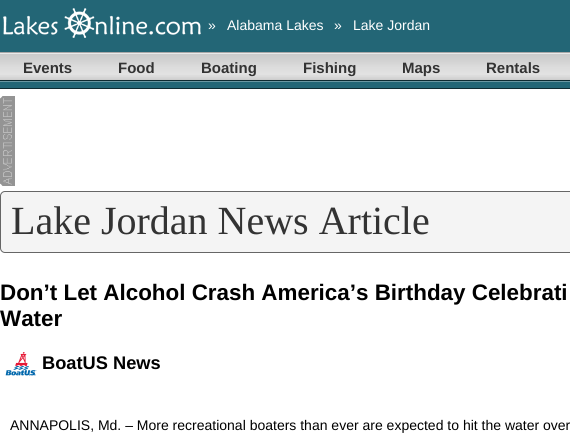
#include <cairo.h>
#include <math.h>
#include <stddef.h>

typedef struct { double x, y; const char *s; } line_t;

static void ink(cairo_t *ctx, unsigned color) {
    cairo_set_source_rgb(ctx, (color >> 16) / 255.0, (color >> 8 & 255) / 255.0, (color & 255) / 255.0);
}

static void round_path(cairo_t *ctx, double x, double y, double w, double h, double r) {
    cairo_new_sub_path(ctx);
    cairo_arc(ctx, x + w - r, y + h - r, r, 0, M_PI / 2);
    cairo_arc(ctx, x + r, y + h - r, r, M_PI / 2, M_PI);
    cairo_arc(ctx, x + r, y + r, r, M_PI, 1.5 * M_PI);
    cairo_arc(ctx, x + w - r, y + r, r, 1.5 * M_PI, 2 * M_PI);
    cairo_close_path(ctx);
}

static void paste(cairo_t *ctx, const char *path, double x, double y, double w, double h) {
    cairo_surface_t *image = cairo_image_surface_create_from_png(path);
    cairo_save(ctx);
    cairo_set_source_surface(ctx, image, x, y);
    cairo_rectangle(ctx, x, y, w, h);
    cairo_fill(ctx);
    cairo_restore(ctx);
    cairo_surface_destroy(image);
}

int main(void) {
    cairo_surface_t *surface = cairo_image_surface_create(CAIRO_FORMAT_RGB24, 570, 435);
    cairo_t *ctx = cairo_create(surface);
    cairo_font_options_t *options = cairo_font_options_create();
    cairo_font_options_set_hint_metrics(options, CAIRO_HINT_METRICS_OFF);
    cairo_font_options_set_hint_style(options, CAIRO_HINT_STYLE_NONE);
    cairo_set_font_options(ctx, options);
    cairo_set_miter_limit(ctx, 4);
    ink(ctx, 0xFFFFFF);
    cairo_paint(ctx);
    ink(ctx, 0x236676);
    cairo_rectangle(ctx, 0, 0, 570, 89);
    cairo_fill(ctx);
    paste(ctx, "media/1.png", 3, 8, 198, 30);
    cairo_select_font_face(ctx, "Liberation Sans", CAIRO_FONT_SLANT_NORMAL, CAIRO_FONT_WEIGHT_NORMAL);
    cairo_set_font_size(ctx, 14);
    ink(ctx, 0xFFFFFF);
    {
        static const line_t items[] = {
            {208, 30, "»"},
            {227, 30, "Alabama Lakes"},
            {334, 30, "»"},
            {353, 30, "Lake Jordan"},
        };
        for (size_t i = 0; i < sizeof items / sizeof *items; i++) {
            cairo_move_to(ctx, items[i].x, items[i].y);
            cairo_show_text(ctx, items[i].s);
        }
    }
    paste(ctx, "media/2.png", 0, 52, 570, 37);
    cairo_select_font_face(ctx, "Liberation Sans", CAIRO_FONT_SLANT_NORMAL, CAIRO_FONT_WEIGHT_BOLD);
    cairo_set_font_size(ctx, 15);
    ink(ctx, 0x333333);
    {
        static const line_t items[] = {
            {23, 73, "Events"},
            {118, 73, "Food"},
            {201, 73, "Boating"},
            {303, 73, "Fishing"},
            {402, 73, "Maps"},
            {486, 73, "Rentals"},
        };
        for (size_t i = 0; i < sizeof items / sizeof *items; i++) {
            cairo_move_to(ctx, items[i].x, items[i].y);
            cairo_show_text(ctx, items[i].s);
        }
    }
    paste(ctx, "media/3.png", 0, 96, 15, 90);
    ink(ctx, 0xF4F4F4);
    round_path(ctx, 0.5, 191.5, 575, 61, 4.5);
    cairo_fill_preserve(ctx);
    ink(ctx, 0x666666);
    cairo_set_line_width(ctx, 1);
    cairo_stroke(ctx);
    cairo_select_font_face(ctx, "Liberation Serif", CAIRO_FONT_SLANT_NORMAL, CAIRO_FONT_WEIGHT_NORMAL);
    cairo_set_font_size(ctx, 40);
    ink(ctx, 0x333333);
    cairo_move_to(ctx, 11, 234);
    cairo_show_text(ctx, "Lake Jordan News Article");
    cairo_select_font_face(ctx, "Liberation Sans", CAIRO_FONT_SLANT_NORMAL, CAIRO_FONT_WEIGHT_BOLD);
    cairo_set_font_size(ctx, 22.4);
    ink(ctx, 0x000000);
    cairo_move_to(ctx, 0, 300);
    cairo_show_text(ctx, "Don’t Let Alcohol Crash America’s Birthday Celebrati");
    cairo_move_to(ctx, 0, 326);
    cairo_show_text(ctx, "Water");
    paste(ctx, "media/4.png", 5, 352, 32, 24);
    cairo_set_font_size(ctx, 18.25);
    cairo_move_to(ctx, 42, 369);
    cairo_show_text(ctx, "BoatUS News");
    cairo_select_font_face(ctx, "Liberation Sans", CAIRO_FONT_SLANT_NORMAL, CAIRO_FONT_WEIGHT_NORMAL);
    cairo_set_font_size(ctx, 14);
    cairo_move_to(ctx, 10, 430);
    cairo_show_text(ctx, "ANNAPOLIS, Md. – More recreational boaters than ever are expected to hit the water over");
    cairo_surface_write_to_png(surface, "image.png");
    cairo_font_options_destroy(options);
    cairo_destroy(ctx);
    cairo_surface_destroy(surface);
    return 0;
}
